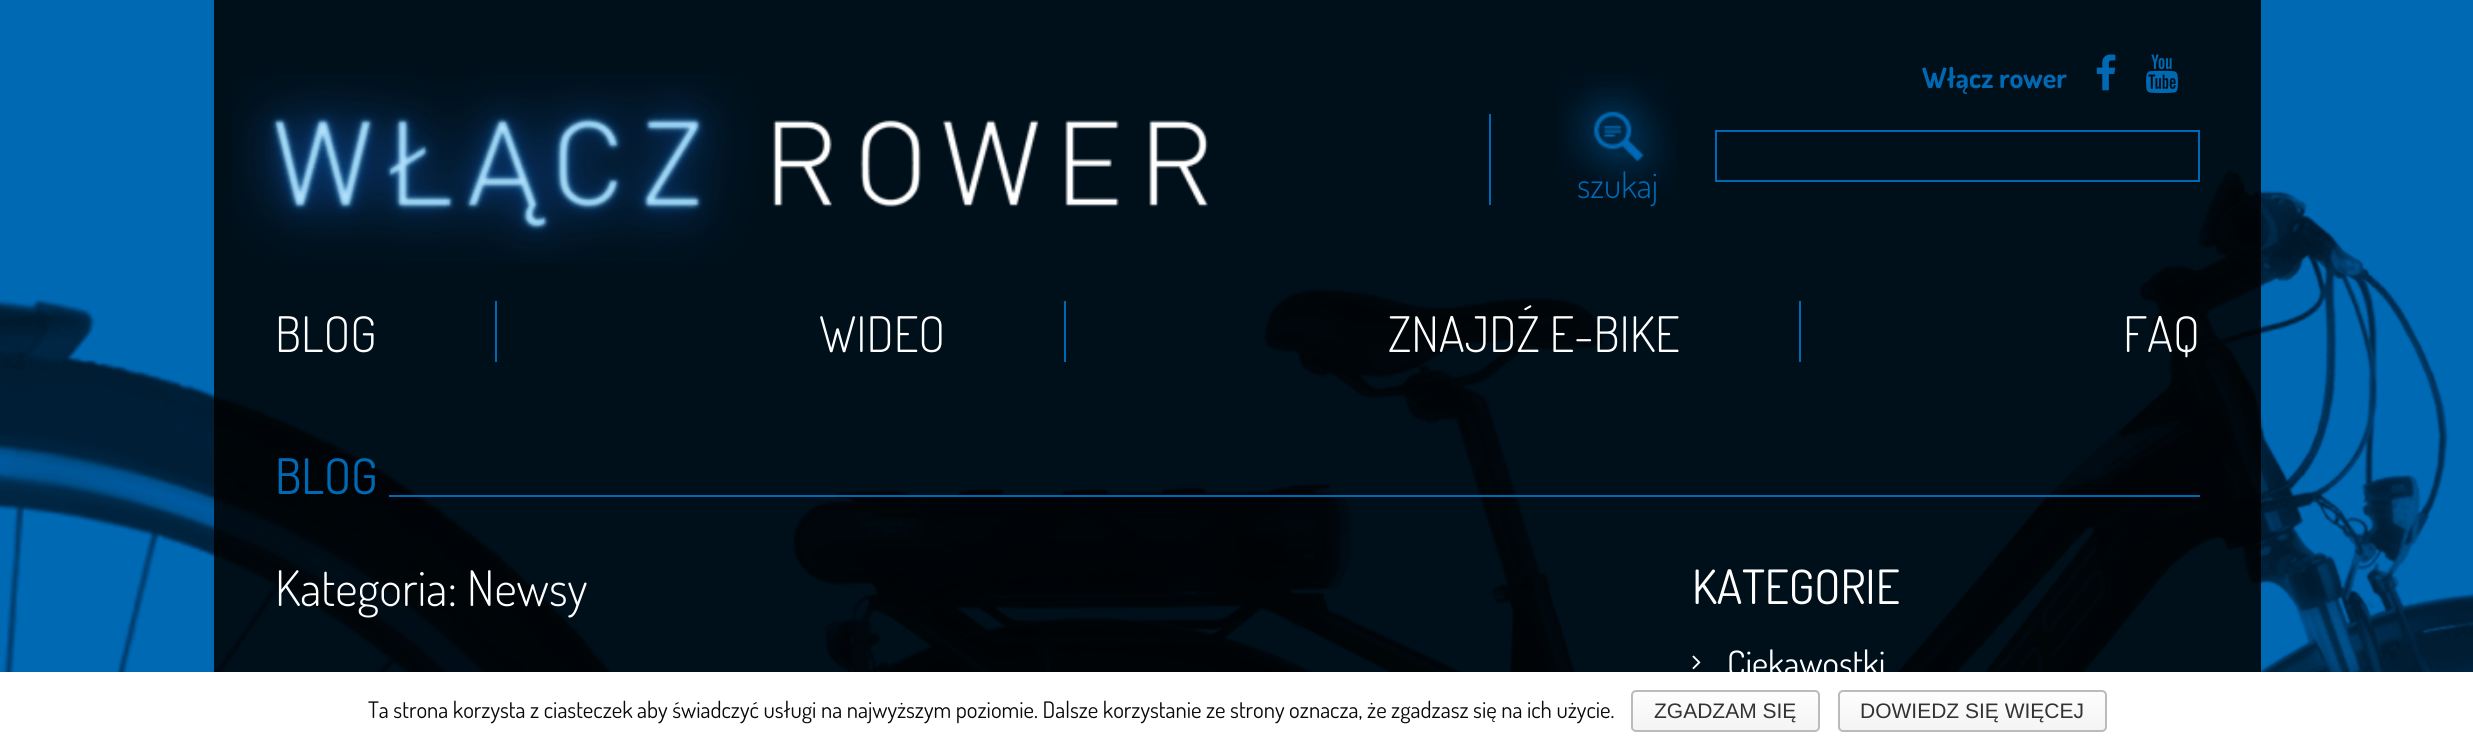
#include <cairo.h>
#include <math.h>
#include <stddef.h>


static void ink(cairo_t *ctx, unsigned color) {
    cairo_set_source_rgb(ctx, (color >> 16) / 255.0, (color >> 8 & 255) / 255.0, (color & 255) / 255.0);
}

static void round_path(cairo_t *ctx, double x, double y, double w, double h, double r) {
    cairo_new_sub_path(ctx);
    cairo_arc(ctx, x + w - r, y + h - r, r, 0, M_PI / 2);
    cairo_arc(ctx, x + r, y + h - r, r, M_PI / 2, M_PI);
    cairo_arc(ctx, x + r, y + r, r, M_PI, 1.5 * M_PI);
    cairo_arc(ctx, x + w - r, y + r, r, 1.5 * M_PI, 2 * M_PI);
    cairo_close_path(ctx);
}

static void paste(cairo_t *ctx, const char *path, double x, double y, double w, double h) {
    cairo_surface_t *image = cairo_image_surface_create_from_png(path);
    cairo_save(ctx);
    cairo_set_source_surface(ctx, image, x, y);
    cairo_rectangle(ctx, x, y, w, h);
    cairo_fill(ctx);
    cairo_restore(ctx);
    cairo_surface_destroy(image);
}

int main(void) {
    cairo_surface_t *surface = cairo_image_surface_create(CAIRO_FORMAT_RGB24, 2473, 749);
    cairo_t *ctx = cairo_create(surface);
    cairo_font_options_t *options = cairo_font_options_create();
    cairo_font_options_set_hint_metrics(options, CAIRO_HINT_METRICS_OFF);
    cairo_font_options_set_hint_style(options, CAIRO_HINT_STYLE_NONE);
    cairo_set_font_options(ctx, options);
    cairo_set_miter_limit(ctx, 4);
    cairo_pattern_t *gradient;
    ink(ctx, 0xFFFFFF);
    cairo_paint(ctx);
    paste(ctx, "media/1.png", 0, 0, 2473, 672);
    cairo_set_source_rgba(ctx, 0, 0, 0, 0.85);
    cairo_rectangle(ctx, 214, 0, 2047, 672);
    cairo_fill(ctx);
    paste(ctx, "media/2.png", 232, 74, 976, 189);
    cairo_select_font_face(ctx, "Dosis", CAIRO_FONT_SLANT_NORMAL, CAIRO_FONT_WEIGHT_BOLD);
    cairo_set_font_size(ctx, 28);
    ink(ctx, 0x0069B4);
    cairo_move_to(ctx, 1922, 88);
    cairo_show_text(ctx, "Włącz rower");
    paste(ctx, "media/3.png", 2096, 54, 20, 37);
    paste(ctx, "media/4.png", 2146, 54, 32, 39);
    cairo_rectangle(ctx, 1489, 114, 2, 91);
    cairo_fill(ctx);
    cairo_rectangle(ctx, 1716, 131, 483, 50);
    cairo_stroke(ctx);
    paste(ctx, "media/5.png", 1557, 74, 120, 121);
    cairo_select_font_face(ctx, "Dosis Light", CAIRO_FONT_SLANT_NORMAL, CAIRO_FONT_WEIGHT_NORMAL);
    cairo_set_font_size(ctx, 35);
    cairo_move_to(ctx, 1577, 198);
    cairo_show_text(ctx, "szukaj");
    cairo_set_font_size(ctx, 49);
    ink(ctx, 0xFFFFFF);
    cairo_move_to(ctx, 275, 352);
    cairo_show_text(ctx, "BLOG");
    ink(ctx, 0x0069B4);
    cairo_rectangle(ctx, 495, 301, 2, 61);
    cairo_fill(ctx);
    ink(ctx, 0xFFFFFF);
    cairo_move_to(ctx, 819, 352);
    cairo_show_text(ctx, "WIDEO");
    ink(ctx, 0x0069B4);
    cairo_rectangle(ctx, 1064, 301, 2, 61);
    cairo_fill(ctx);
    ink(ctx, 0xFFFFFF);
    cairo_move_to(ctx, 1388, 352);
    cairo_show_text(ctx, "ZNAJDŹ E-BIKE");
    ink(ctx, 0x0069B4);
    cairo_rectangle(ctx, 1799, 301, 2, 61);
    cairo_fill(ctx);
    ink(ctx, 0xFFFFFF);
    cairo_move_to(ctx, 2123, 352);
    cairo_show_text(ctx, "FAQ");
    cairo_select_font_face(ctx, "Dosis", CAIRO_FONT_SLANT_NORMAL, CAIRO_FONT_WEIGHT_NORMAL);
    ink(ctx, 0x0069B4);
    cairo_move_to(ctx, 275, 494);
    cairo_show_text(ctx, "BLOG");
    cairo_rectangle(ctx, 389, 495, 1811, 2);
    cairo_fill(ctx);
    cairo_select_font_face(ctx, "Dosis Light", CAIRO_FONT_SLANT_NORMAL, CAIRO_FONT_WEIGHT_NORMAL);
    ink(ctx, 0xFFFFFF);
    cairo_move_to(ctx, 275, 606);
    cairo_show_text(ctx, "Kategoria: Newsy");
    cairo_select_font_face(ctx, "Dosis", CAIRO_FONT_SLANT_NORMAL, CAIRO_FONT_WEIGHT_NORMAL);
    cairo_set_font_size(ctx, 47.25);
    cairo_move_to(ctx, 1692, 604);
    cairo_show_text(ctx, "KATEGORIE");
    paste(ctx, "media/6.png", 1692, 655, 9, 15);
    cairo_set_font_size(ctx, 35);
    cairo_move_to(ctx, 1727, 676);
    cairo_show_text(ctx, "Ciekawostki");
    cairo_set_font_size(ctx, 22.75);
    ink(ctx, 0x0A0A0A);
    cairo_move_to(ctx, 368, 718);
    cairo_show_text(ctx, "Ta strona korzysta z ciasteczek aby świadczyć usługi na najwyższym poziomie. Dalsze korzystanie ze strony oznacza, że zgadzasz się na ich użycie.");
    cairo_save(ctx);
    round_path(ctx, 1631, 690, 189, 42, 5);
    cairo_clip(ctx);
    gradient = cairo_pattern_create_linear(1726, 691, 1726, 730);
    cairo_pattern_add_color_stop_rgba(gradient, 0, 0.996, 0.996, 0.996, 1);
    cairo_pattern_add_color_stop_rgba(gradient, 1, 0.957, 0.957, 0.957, 1);
    cairo_set_source(ctx, gradient);
    cairo_pattern_destroy(gradient);
    cairo_rectangle(ctx, 1631, 691, 189, 39);
    cairo_fill(ctx);
    cairo_restore(ctx);
    round_path(ctx, 1632, 691, 187, 40, 4);
    ink(ctx, 0xBBBBBB);
    cairo_stroke(ctx);
    cairo_select_font_face(ctx, "Liberation Sans", CAIRO_FONT_SLANT_NORMAL, CAIRO_FONT_WEIGHT_NORMAL);
    cairo_set_font_size(ctx, 21);
    ink(ctx, 0x333333);
    cairo_move_to(ctx, 1654, 718);
    cairo_show_text(ctx, "ZGADZAM SIĘ");
    cairo_save(ctx);
    round_path(ctx, 1838, 690, 269, 42, 5);
    cairo_clip(ctx);
    gradient = cairo_pattern_create_linear(1972, 691, 1972, 730);
    cairo_pattern_add_color_stop_rgba(gradient, 0, 0.996, 0.996, 0.996, 1);
    cairo_pattern_add_color_stop_rgba(gradient, 1, 0.957, 0.957, 0.957, 1);
    cairo_set_source(ctx, gradient);
    cairo_pattern_destroy(gradient);
    cairo_rectangle(ctx, 1838, 691, 269, 39);
    cairo_fill(ctx);
    cairo_restore(ctx);
    round_path(ctx, 1839, 691, 267, 40, 4);
    ink(ctx, 0xBBBBBB);
    cairo_stroke(ctx);
    ink(ctx, 0x333333);
    cairo_move_to(ctx, 1860, 718);
    cairo_show_text(ctx, "DOWIEDZ SIĘ WIĘCEJ");
    cairo_surface_write_to_png(surface, "image.png");
    cairo_font_options_destroy(options);
    cairo_destroy(ctx);
    cairo_surface_destroy(surface);
    return 0;
}
